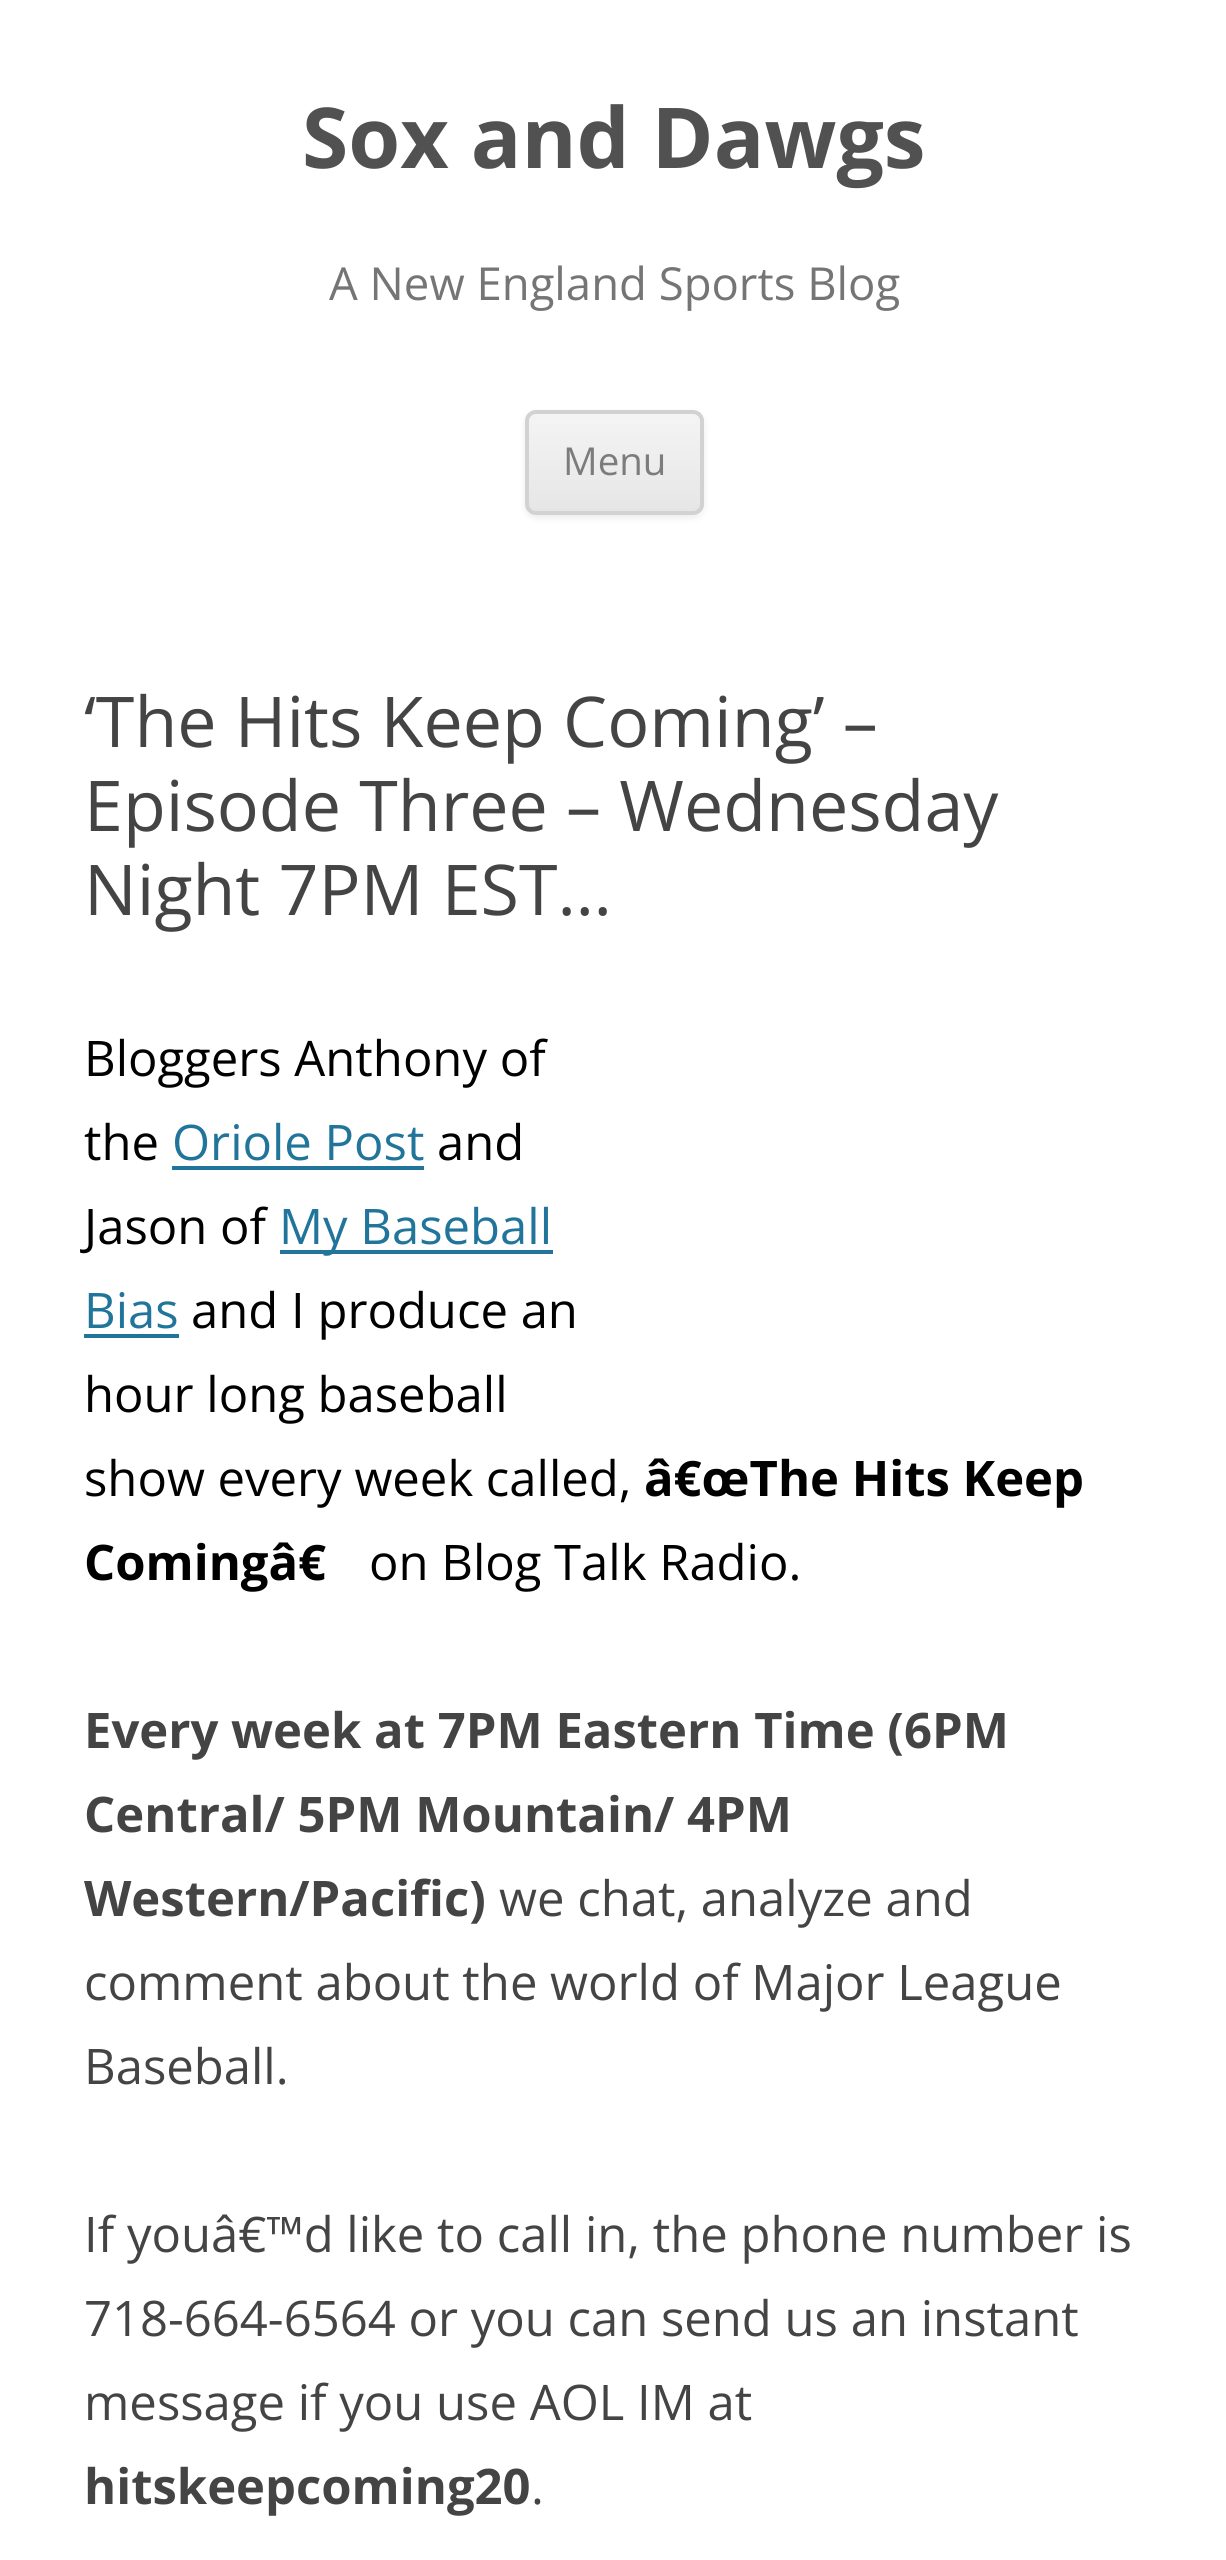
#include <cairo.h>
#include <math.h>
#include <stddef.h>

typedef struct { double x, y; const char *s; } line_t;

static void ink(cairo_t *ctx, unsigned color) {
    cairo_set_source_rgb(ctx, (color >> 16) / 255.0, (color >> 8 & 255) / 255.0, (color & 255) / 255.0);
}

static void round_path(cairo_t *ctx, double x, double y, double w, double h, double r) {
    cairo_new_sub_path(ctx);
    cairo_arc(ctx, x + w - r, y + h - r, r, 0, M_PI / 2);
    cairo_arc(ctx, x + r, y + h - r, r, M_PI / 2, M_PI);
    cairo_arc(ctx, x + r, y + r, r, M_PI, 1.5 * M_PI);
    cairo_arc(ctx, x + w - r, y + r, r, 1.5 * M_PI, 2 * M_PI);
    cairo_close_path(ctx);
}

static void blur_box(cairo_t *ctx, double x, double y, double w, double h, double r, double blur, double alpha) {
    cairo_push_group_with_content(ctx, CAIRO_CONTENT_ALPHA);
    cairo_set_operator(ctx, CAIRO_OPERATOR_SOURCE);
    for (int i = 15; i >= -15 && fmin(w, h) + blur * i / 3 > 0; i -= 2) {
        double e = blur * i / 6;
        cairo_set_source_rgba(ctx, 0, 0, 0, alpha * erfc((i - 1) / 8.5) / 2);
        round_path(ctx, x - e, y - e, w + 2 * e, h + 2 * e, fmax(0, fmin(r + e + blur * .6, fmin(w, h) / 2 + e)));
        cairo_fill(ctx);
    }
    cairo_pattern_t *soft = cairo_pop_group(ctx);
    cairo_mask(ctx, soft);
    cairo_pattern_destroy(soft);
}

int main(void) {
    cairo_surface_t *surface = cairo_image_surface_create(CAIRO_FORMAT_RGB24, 1226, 2560);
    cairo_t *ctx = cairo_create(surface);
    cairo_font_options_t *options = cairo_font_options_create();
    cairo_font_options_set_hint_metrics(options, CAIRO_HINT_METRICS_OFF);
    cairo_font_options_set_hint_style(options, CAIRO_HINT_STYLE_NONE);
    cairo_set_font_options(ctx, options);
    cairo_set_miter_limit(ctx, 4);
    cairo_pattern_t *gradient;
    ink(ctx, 0xFFFFFF);
    cairo_paint(ctx);
    cairo_select_font_face(ctx, "Open Sans", CAIRO_FONT_SLANT_NORMAL, CAIRO_FONT_WEIGHT_BOLD);
    cairo_set_font_size(ctx, 84);
    ink(ctx, 0x515151);
    cairo_move_to(ctx, 302, 168);
    cairo_show_text(ctx, "Sox and Dawgs");
    cairo_select_font_face(ctx, "Open Sans", CAIRO_FONT_SLANT_NORMAL, CAIRO_FONT_WEIGHT_NORMAL);
    cairo_set_font_size(ctx, 45.5);
    ink(ctx, 0x757575);
    cairo_move_to(ctx, 329, 300);
    cairo_show_text(ctx, "A New England Sports Blog");
    ink(ctx, 0x404040);
    blur_box(ctx, 525, 413, 179, 105, 11, 3.5, 0.1);
    cairo_save(ctx);
    round_path(ctx, 525, 410, 179, 105, 11);
    cairo_clip(ctx);
    gradient = cairo_pattern_create_linear(614, 413, 614, 511);
    cairo_pattern_add_color_stop_rgba(gradient, 0, 0.957, 0.957, 0.957, 1);
    cairo_pattern_add_color_stop_rgba(gradient, 1, 0.902, 0.902, 0.902, 1);
    cairo_set_source(ctx, gradient);
    cairo_pattern_destroy(gradient);
    cairo_rectangle(ctx, 525, 413, 179, 98);
    cairo_fill(ctx);
    cairo_restore(ctx);
    round_path(ctx, 527, 412, 175, 101, 9);
    ink(ctx, 0xD2D2D2);
    cairo_set_line_width(ctx, 4);
    cairo_stroke(ctx);
    cairo_set_font_size(ctx, 38.5);
    ink(ctx, 0x7C7C7C);
    cairo_move_to(ctx, 563, 475);
    cairo_show_text(ctx, "Menu");
    cairo_set_font_size(ctx, 70);
    ink(ctx, 0x444444);
    {
        static const line_t items[] = {
            {84, 747, "‘The Hits Keep Coming’ –"},
            {84, 831, "Episode Three – Wednesday"},
            {84, 915, "Night 7PM EST…"},
        };
        for (size_t i = 0; i < sizeof items / sizeof *items; i++) {
            cairo_move_to(ctx, items[i].x, items[i].y);
            cairo_show_text(ctx, items[i].s);
        }
    }
    cairo_set_font_size(ctx, 49);
    ink(ctx, 0x000000);
    cairo_move_to(ctx, 84, 1076);
    cairo_show_text(ctx, "Bloggers Anthony of");
    cairo_move_to(ctx, 84, 1160);
    cairo_show_text(ctx, "the");
    ink(ctx, 0x21759B);
    cairo_move_to(ctx, 172, 1160);
    cairo_show_text(ctx, "Oriole Post");
    cairo_rectangle(ctx, 172, 1166, 252, 4);
    cairo_fill(ctx);
    ink(ctx, 0x000000);
    cairo_move_to(ctx, 437, 1160);
    cairo_show_text(ctx, "and");
    cairo_move_to(ctx, 84, 1244);
    cairo_show_text(ctx, "Jason of");
    ink(ctx, 0x21759B);
    cairo_rectangle(ctx, 280, 1250, 273, 4);
    cairo_fill(ctx);
    cairo_move_to(ctx, 279, 1244);
    cairo_show_text(ctx, "My Baseball");
    cairo_move_to(ctx, 84, 1328);
    cairo_show_text(ctx, "Bias");
    cairo_rectangle(ctx, 84, 1334, 95, 4);
    cairo_fill(ctx);
    ink(ctx, 0x000000);
    {
        static const line_t items[] = {
            {191, 1328, "and I produce an"},
            {84, 1412, "hour long baseball"},
            {84, 1496, "show every week called,"},
        };
        for (size_t i = 0; i < sizeof items / sizeof *items; i++) {
            cairo_move_to(ctx, items[i].x, items[i].y);
            cairo_show_text(ctx, items[i].s);
        }
    }
    cairo_select_font_face(ctx, "Open Sans", CAIRO_FONT_SLANT_NORMAL, CAIRO_FONT_WEIGHT_BOLD);
    cairo_move_to(ctx, 644, 1496);
    cairo_show_text(ctx, "â€œThe Hits Keep");
    cairo_move_to(ctx, 84, 1580);
    cairo_show_text(ctx, "Comingâ€");
    cairo_select_font_face(ctx, "Open Sans", CAIRO_FONT_SLANT_NORMAL, CAIRO_FONT_WEIGHT_NORMAL);
    cairo_move_to(ctx, 369, 1580);
    cairo_show_text(ctx, "on Blog Talk Radio.");
    cairo_select_font_face(ctx, "Open Sans", CAIRO_FONT_SLANT_NORMAL, CAIRO_FONT_WEIGHT_BOLD);
    ink(ctx, 0x444444);
    {
        static const line_t items[] = {
            {84, 1748, "Every week at 7PM Eastern Time (6PM"},
            {84, 1832, "Central/ 5PM Mountain/ 4PM"},
            {84, 1916, "Western/Pacific)"},
        };
        for (size_t i = 0; i < sizeof items / sizeof *items; i++) {
            cairo_move_to(ctx, items[i].x, items[i].y);
            cairo_show_text(ctx, items[i].s);
        }
    }
    cairo_select_font_face(ctx, "Open Sans", CAIRO_FONT_SLANT_NORMAL, CAIRO_FONT_WEIGHT_NORMAL);
    {
        static const line_t items[] = {
            {499, 1916, "we chat, analyze and"},
            {84, 2000, "comment about the world of Major League"},
            {84, 2084, "Baseball."},
            {84, 2252, "If youâ€™d like to call in, the phone number is"},
            {84, 2336, "718-664-6564 or you can send us an instant"},
            {84, 2420, "message if you use AOL IM at"},
        };
        for (size_t i = 0; i < sizeof items / sizeof *items; i++) {
            cairo_move_to(ctx, items[i].x, items[i].y);
            cairo_show_text(ctx, items[i].s);
        }
    }
    cairo_select_font_face(ctx, "Open Sans", CAIRO_FONT_SLANT_NORMAL, CAIRO_FONT_WEIGHT_BOLD);
    cairo_move_to(ctx, 84, 2504);
    cairo_show_text(ctx, "hitskeepcoming20");
    cairo_select_font_face(ctx, "Open Sans", CAIRO_FONT_SLANT_NORMAL, CAIRO_FONT_WEIGHT_NORMAL);
    cairo_move_to(ctx, 531, 2504);
    cairo_show_text(ctx, ".");
    cairo_surface_write_to_png(surface, "image.png");
    cairo_font_options_destroy(options);
    cairo_destroy(ctx);
    cairo_surface_destroy(surface);
    return 0;
}
